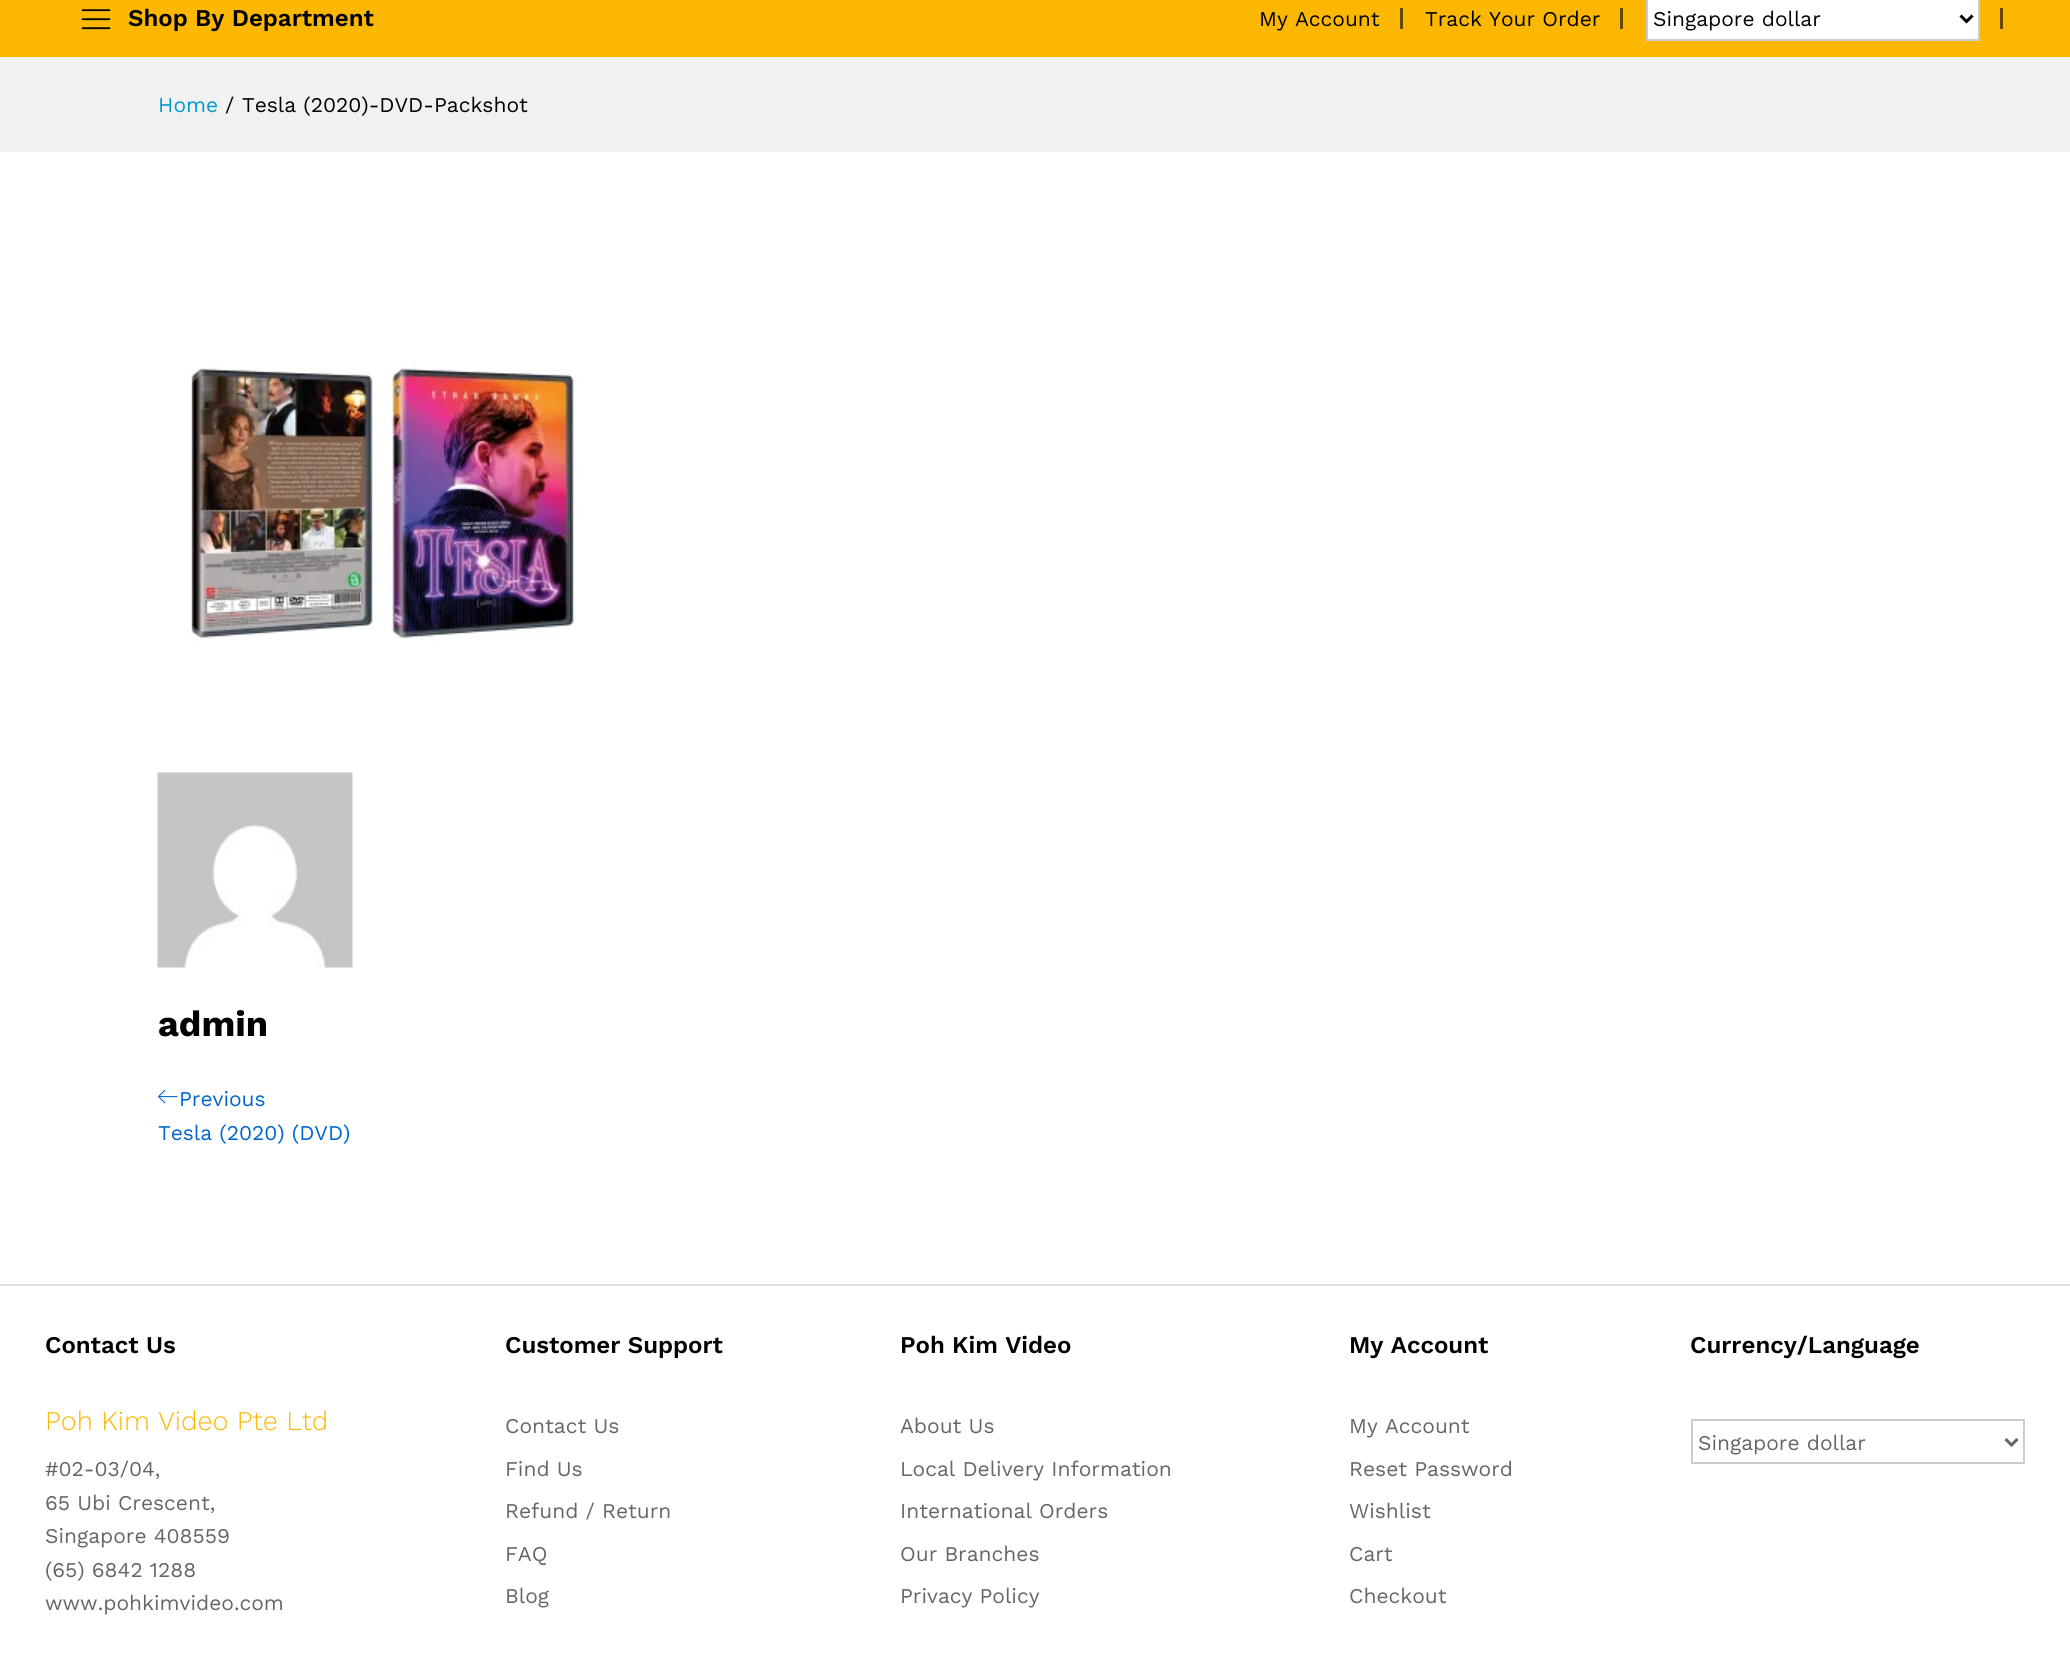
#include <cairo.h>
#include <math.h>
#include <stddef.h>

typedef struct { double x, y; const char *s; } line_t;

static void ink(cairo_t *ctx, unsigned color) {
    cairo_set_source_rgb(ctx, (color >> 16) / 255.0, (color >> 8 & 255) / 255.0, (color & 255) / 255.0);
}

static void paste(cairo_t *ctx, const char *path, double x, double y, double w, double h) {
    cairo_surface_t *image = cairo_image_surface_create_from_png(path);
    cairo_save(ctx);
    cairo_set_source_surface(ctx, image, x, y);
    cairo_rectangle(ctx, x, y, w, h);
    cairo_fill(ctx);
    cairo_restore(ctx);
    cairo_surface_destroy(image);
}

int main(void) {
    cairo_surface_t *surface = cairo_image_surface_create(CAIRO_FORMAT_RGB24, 2070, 1674);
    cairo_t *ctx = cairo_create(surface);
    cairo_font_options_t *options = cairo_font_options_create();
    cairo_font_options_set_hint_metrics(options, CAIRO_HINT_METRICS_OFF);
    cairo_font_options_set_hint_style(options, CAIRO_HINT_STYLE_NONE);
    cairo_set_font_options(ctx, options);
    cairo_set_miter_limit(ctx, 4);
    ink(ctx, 0xFFFFFF);
    cairo_paint(ctx);
    ink(ctx, 0xFCB800);
    cairo_rectangle(ctx, 0, 0, 2070, 57);
    cairo_fill(ctx);
    paste(ctx, "media/1.png", 81, 9, 30, 21);
    cairo_select_font_face(ctx, "Work Sans SemiBold", CAIRO_FONT_SLANT_NORMAL, CAIRO_FONT_WEIGHT_NORMAL);
    cairo_set_font_size(ctx, 24);
    ink(ctx, 0x000000);
    cairo_move_to(ctx, 128, 26);
    cairo_show_text(ctx, "Shop By Department");
    cairo_select_font_face(ctx, "Work Sans", CAIRO_FONT_SLANT_NORMAL, CAIRO_FONT_WEIGHT_NORMAL);
    cairo_set_font_size(ctx, 21);
    cairo_move_to(ctx, 1259, 26);
    cairo_show_text(ctx, "My Account");
    ink(ctx, 0x654A00);
    cairo_rectangle(ctx, 1400, 8, 3, 21);
    cairo_fill(ctx);
    ink(ctx, 0x000000);
    cairo_move_to(ctx, 1425, 26);
    cairo_show_text(ctx, "Track Your Order");
    ink(ctx, 0x654A00);
    cairo_rectangle(ctx, 1620, 8, 3, 21);
    cairo_fill(ctx);
    ink(ctx, 0xFFFFFF);
    cairo_rectangle(ctx, 1647, -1, 332, 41);
    cairo_fill_preserve(ctx);
    ink(ctx, 0xCCCCCC);
    cairo_stroke(ctx);
    cairo_new_path(ctx);
    cairo_move_to(ctx, 1960.5, 15.5);
    cairo_line_to(ctx, 1966.5, 21.5);
    cairo_line_to(ctx, 1972.5, 15.5);
    ink(ctx, 0x000000);
    cairo_set_line_width(ctx, 3);
    cairo_stroke(ctx);
    cairo_move_to(ctx, 1653, 26);
    cairo_show_text(ctx, "Singapore dollar");
    ink(ctx, 0x654A00);
    cairo_rectangle(ctx, 2000, 8, 3, 21);
    cairo_fill(ctx);
    ink(ctx, 0xF1F1F1);
    cairo_rectangle(ctx, 0, 57, 2070, 95);
    cairo_fill(ctx);
    ink(ctx, 0x0099CC);
    cairo_move_to(ctx, 158, 112);
    cairo_show_text(ctx, "Home");
    ink(ctx, 0x000000);
    cairo_move_to(ctx, 225, 112);
    cairo_show_text(ctx, "/");
    cairo_move_to(ctx, 242, 112);
    cairo_show_text(ctx, "Tesla (2020)-DVD-Packshot");
    paste(ctx, "media/2.png", 188, 364, 389, 277);
    paste(ctx, "media/3.png", 157, 772, 196, 196);
    cairo_select_font_face(ctx, "Work Sans", CAIRO_FONT_SLANT_NORMAL, CAIRO_FONT_WEIGHT_BOLD);
    cairo_set_font_size(ctx, 36);
    cairo_move_to(ctx, 158, 1036);
    cairo_show_text(ctx, "admin");
    paste(ctx, "media/4.png", 158, 1089, 20, 15);
    cairo_select_font_face(ctx, "Work Sans", CAIRO_FONT_SLANT_NORMAL, CAIRO_FONT_WEIGHT_NORMAL);
    cairo_set_font_size(ctx, 21);
    ink(ctx, 0x0066CC);
    cairo_move_to(ctx, 179, 1106);
    cairo_show_text(ctx, "Previous");
    cairo_move_to(ctx, 158, 1140);
    cairo_show_text(ctx, "Tesla (2020) (DVD)");
    ink(ctx, 0xE1E1E1);
    cairo_rectangle(ctx, 0, 1284, 2070, 2);
    cairo_fill(ctx);
    cairo_select_font_face(ctx, "Work Sans SemiBold", CAIRO_FONT_SLANT_NORMAL, CAIRO_FONT_WEIGHT_NORMAL);
    cairo_set_font_size(ctx, 24);
    ink(ctx, 0x000000);
    cairo_move_to(ctx, 45, 1353);
    cairo_show_text(ctx, "Contact Us");
    cairo_select_font_face(ctx, "Work Sans Light", CAIRO_FONT_SLANT_NORMAL, CAIRO_FONT_WEIGHT_NORMAL);
    cairo_set_font_size(ctx, 27);
    ink(ctx, 0xFCB800);
    cairo_move_to(ctx, 45, 1430);
    cairo_show_text(ctx, "Poh Kim Video Pte Ltd");
    cairo_select_font_face(ctx, "Work Sans", CAIRO_FONT_SLANT_NORMAL, CAIRO_FONT_WEIGHT_NORMAL);
    cairo_set_font_size(ctx, 21);
    ink(ctx, 0x666666);
    {
        static const line_t items[] = {
            {45, 1476, "#02-03/04,"},
            {45, 1510, "65 Ubi Crescent,"},
            {45, 1543, "Singapore 408559"},
            {45, 1577, "(65) 6842 1288"},
            {45, 1610, "www.pohkimvideo.com"},
        };
        for (size_t i = 0; i < sizeof items / sizeof *items; i++) {
            cairo_move_to(ctx, items[i].x, items[i].y);
            cairo_show_text(ctx, items[i].s);
        }
    }
    cairo_select_font_face(ctx, "Work Sans SemiBold", CAIRO_FONT_SLANT_NORMAL, CAIRO_FONT_WEIGHT_NORMAL);
    cairo_set_font_size(ctx, 24);
    ink(ctx, 0x000000);
    cairo_move_to(ctx, 505, 1353);
    cairo_show_text(ctx, "Customer Support");
    cairo_select_font_face(ctx, "Work Sans", CAIRO_FONT_SLANT_NORMAL, CAIRO_FONT_WEIGHT_NORMAL);
    cairo_set_font_size(ctx, 21);
    ink(ctx, 0x666666);
    {
        static const line_t items[] = {
            {505, 1433, "Contact Us"},
            {505, 1476, "Find Us"},
            {505, 1518, "Refund / Return"},
            {505, 1561, "FAQ"},
            {505, 1603, "Blog"},
        };
        for (size_t i = 0; i < sizeof items / sizeof *items; i++) {
            cairo_move_to(ctx, items[i].x, items[i].y);
            cairo_show_text(ctx, items[i].s);
        }
    }
    cairo_select_font_face(ctx, "Work Sans SemiBold", CAIRO_FONT_SLANT_NORMAL, CAIRO_FONT_WEIGHT_NORMAL);
    cairo_set_font_size(ctx, 24);
    ink(ctx, 0x000000);
    cairo_move_to(ctx, 900, 1353);
    cairo_show_text(ctx, "Poh Kim Video");
    cairo_select_font_face(ctx, "Work Sans", CAIRO_FONT_SLANT_NORMAL, CAIRO_FONT_WEIGHT_NORMAL);
    cairo_set_font_size(ctx, 21);
    ink(ctx, 0x666666);
    {
        static const line_t items[] = {
            {900, 1433, "About Us"},
            {900, 1476, "Local Delivery Information"},
            {900, 1518, "International Orders"},
            {900, 1561, "Our Branches"},
            {900, 1603, "Privacy Policy"},
        };
        for (size_t i = 0; i < sizeof items / sizeof *items; i++) {
            cairo_move_to(ctx, items[i].x, items[i].y);
            cairo_show_text(ctx, items[i].s);
        }
    }
    cairo_select_font_face(ctx, "Work Sans SemiBold", CAIRO_FONT_SLANT_NORMAL, CAIRO_FONT_WEIGHT_NORMAL);
    cairo_set_font_size(ctx, 24);
    ink(ctx, 0x000000);
    cairo_move_to(ctx, 1349, 1353);
    cairo_show_text(ctx, "My Account");
    cairo_select_font_face(ctx, "Work Sans", CAIRO_FONT_SLANT_NORMAL, CAIRO_FONT_WEIGHT_NORMAL);
    cairo_set_font_size(ctx, 21);
    ink(ctx, 0x666666);
    {
        static const line_t items[] = {
            {1349, 1433, "My Account"},
            {1349, 1476, "Reset Password"},
            {1349, 1518, "Wishlist"},
            {1349, 1561, "Cart"},
            {1349, 1603, "Checkout"},
        };
        for (size_t i = 0; i < sizeof items / sizeof *items; i++) {
            cairo_move_to(ctx, items[i].x, items[i].y);
            cairo_show_text(ctx, items[i].s);
        }
    }
    cairo_select_font_face(ctx, "Work Sans SemiBold", CAIRO_FONT_SLANT_NORMAL, CAIRO_FONT_WEIGHT_NORMAL);
    cairo_set_font_size(ctx, 24);
    ink(ctx, 0x000000);
    cairo_move_to(ctx, 1690, 1353);
    cairo_show_text(ctx, "Currency/Language");
    cairo_rectangle(ctx, 1692, 1420, 332, 43);
    ink(ctx, 0xCCCCCC);
    cairo_set_line_width(ctx, 2);
    cairo_stroke(ctx);
    cairo_new_path(ctx);
    cairo_move_to(ctx, 2005.5, 1439);
    cairo_line_to(ctx, 2011.5, 1445);
    cairo_line_to(ctx, 2017.5, 1439);
    ink(ctx, 0x666666);
    cairo_set_line_width(ctx, 3);
    cairo_stroke(ctx);
    cairo_select_font_face(ctx, "Work Sans", CAIRO_FONT_SLANT_NORMAL, CAIRO_FONT_WEIGHT_NORMAL);
    cairo_set_font_size(ctx, 21);
    cairo_move_to(ctx, 1698, 1450);
    cairo_show_text(ctx, "Singapore dollar");
    cairo_surface_write_to_png(surface, "image.png");
    cairo_font_options_destroy(options);
    cairo_destroy(ctx);
    cairo_surface_destroy(surface);
    return 0;
}
